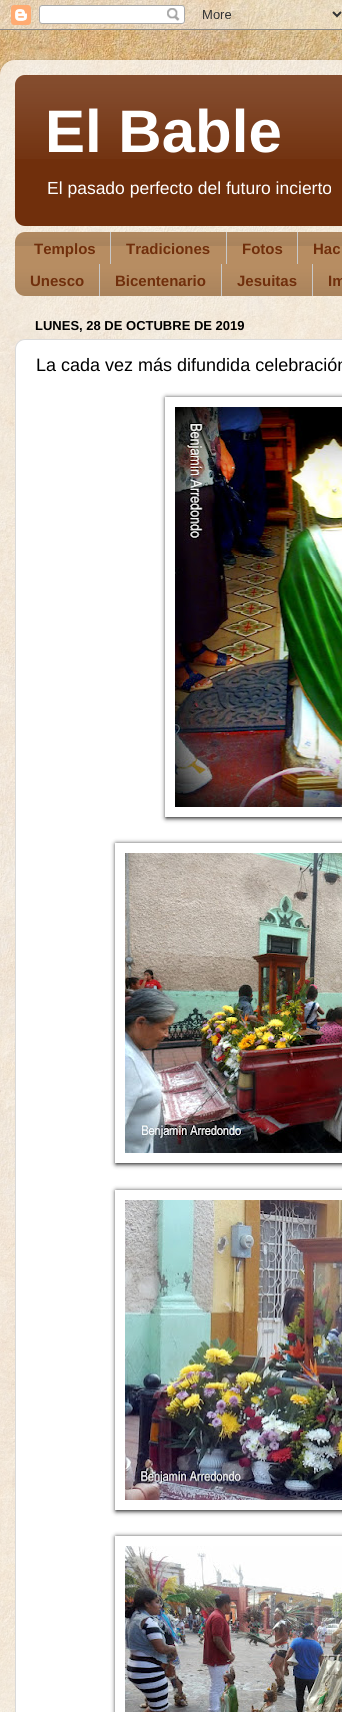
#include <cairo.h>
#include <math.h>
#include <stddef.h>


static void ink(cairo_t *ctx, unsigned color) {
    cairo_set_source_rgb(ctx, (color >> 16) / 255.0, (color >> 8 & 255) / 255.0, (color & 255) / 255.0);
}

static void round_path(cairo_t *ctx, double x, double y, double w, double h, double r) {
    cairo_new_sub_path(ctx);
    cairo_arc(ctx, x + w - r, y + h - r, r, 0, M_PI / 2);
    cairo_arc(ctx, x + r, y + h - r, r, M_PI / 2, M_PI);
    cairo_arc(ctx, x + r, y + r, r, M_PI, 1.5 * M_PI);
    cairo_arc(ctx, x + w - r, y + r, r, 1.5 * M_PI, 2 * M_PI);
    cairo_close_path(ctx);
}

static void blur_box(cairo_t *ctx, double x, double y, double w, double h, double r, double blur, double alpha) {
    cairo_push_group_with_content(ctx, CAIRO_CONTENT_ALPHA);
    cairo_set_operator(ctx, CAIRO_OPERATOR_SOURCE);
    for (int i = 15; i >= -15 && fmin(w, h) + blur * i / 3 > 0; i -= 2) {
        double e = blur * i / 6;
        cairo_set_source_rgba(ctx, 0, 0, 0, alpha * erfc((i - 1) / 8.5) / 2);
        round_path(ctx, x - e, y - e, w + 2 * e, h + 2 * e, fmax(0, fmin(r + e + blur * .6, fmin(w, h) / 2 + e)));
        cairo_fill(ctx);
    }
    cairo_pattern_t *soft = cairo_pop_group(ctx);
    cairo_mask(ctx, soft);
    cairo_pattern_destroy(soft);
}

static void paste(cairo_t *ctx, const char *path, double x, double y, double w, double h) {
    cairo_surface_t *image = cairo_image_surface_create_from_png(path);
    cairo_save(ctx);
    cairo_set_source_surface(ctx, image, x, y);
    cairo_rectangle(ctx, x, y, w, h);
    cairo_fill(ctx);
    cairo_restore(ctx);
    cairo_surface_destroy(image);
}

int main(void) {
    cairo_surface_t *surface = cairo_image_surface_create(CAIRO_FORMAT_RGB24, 342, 1712);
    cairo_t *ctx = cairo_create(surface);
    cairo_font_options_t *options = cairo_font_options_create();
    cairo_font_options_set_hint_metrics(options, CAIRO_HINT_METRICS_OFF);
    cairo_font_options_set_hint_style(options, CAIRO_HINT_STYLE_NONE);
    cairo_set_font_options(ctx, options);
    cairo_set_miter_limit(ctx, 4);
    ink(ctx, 0xFFFFFF);
    cairo_paint(ctx);
    paste(ctx, "media/1.png", 0, 0, 342, 1712);
    paste(ctx, "media/2.png", 0, 0, 342, 30);
    cairo_save(ctx);
    cairo_set_fill_rule(ctx, CAIRO_FILL_RULE_EVEN_ODD);
    cairo_new_path(ctx);
    cairo_move_to(ctx, 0, 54);
    cairo_line_to(ctx, 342, 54);
    cairo_line_to(ctx, 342, 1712);
    cairo_line_to(ctx, 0, 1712);
    cairo_close_path(ctx);
    cairo_move_to(ctx, 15, 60);
    cairo_line_to(ctx, 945, 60);
    cairo_curve_to(ctx, 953.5, 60, 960, 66.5, 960, 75);
    cairo_line_to(ctx, 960, 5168);
    cairo_curve_to(ctx, 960, 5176.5, 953.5, 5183, 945, 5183);
    cairo_line_to(ctx, 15, 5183);
    cairo_curve_to(ctx, 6.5, 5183, 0, 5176.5, 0, 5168);
    cairo_line_to(ctx, 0, 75);
    cairo_curve_to(ctx, 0, 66.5, 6.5, 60, 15, 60);
    cairo_close_path(ctx);
    cairo_clip(ctx);
    ink(ctx, 0x000000);
    blur_box(ctx, 0, 60, 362, 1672, 15, 1.5, 0.15);
    cairo_restore(ctx);
    paste(ctx, "media/3.png", 0, 60, 342, 1652);
    ink(ctx, 0x702F0C);
    round_path(ctx, 15, 75, 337, 151, 10);
    cairo_fill(ctx);
    paste(ctx, "media/4.png", 15, 75, 327, 84);
    cairo_select_font_face(ctx, "Liberation Sans", CAIRO_FONT_SLANT_NORMAL, CAIRO_FONT_WEIGHT_BOLD);
    cairo_set_font_size(ctx, 60);
    ink(ctx, 0xFFFFFF);
    cairo_move_to(ctx, 45, 152);
    cairo_show_text(ctx, "El Bable");
    cairo_select_font_face(ctx, "Liberation Sans", CAIRO_FONT_SLANT_NORMAL, CAIRO_FONT_WEIGHT_NORMAL);
    cairo_set_font_size(ctx, 17.5);
    cairo_move_to(ctx, 47, 194);
    cairo_show_text(ctx, "El pasado perfecto del futuro incierto");
    ink(ctx, 0xB78D62);
    round_path(ctx, 15, 232, 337, 64, 10);
    cairo_fill(ctx);
    paste(ctx, "media/5.png", 15, 232, 327, 64);
    ink(ctx, 0xC8C8C8);
    cairo_rectangle(ctx, 110, 232, 1, 32);
    cairo_fill(ctx);
    cairo_select_font_face(ctx, "Liberation Sans", CAIRO_FONT_SLANT_NORMAL, CAIRO_FONT_WEIGHT_BOLD);
    cairo_set_font_size(ctx, 15);
    ink(ctx, 0x702F0C);
    cairo_move_to(ctx, 34, 254);
    cairo_show_text(ctx, "Templos");
    ink(ctx, 0xC8C8C8);
    cairo_rectangle(ctx, 226, 232, 1, 32);
    cairo_fill(ctx);
    ink(ctx, 0x702F0C);
    cairo_move_to(ctx, 126, 254);
    cairo_show_text(ctx, "Tradiciones");
    ink(ctx, 0xC8C8C8);
    cairo_rectangle(ctx, 297, 232, 1, 32);
    cairo_fill(ctx);
    ink(ctx, 0x702F0C);
    cairo_move_to(ctx, 242, 254);
    cairo_show_text(ctx, "Fotos");
    cairo_move_to(ctx, 313, 254);
    cairo_show_text(ctx, "Hac");
    ink(ctx, 0xC8C8C8);
    cairo_rectangle(ctx, 99, 264, 1, 32);
    cairo_fill(ctx);
    ink(ctx, 0x702F0C);
    cairo_move_to(ctx, 30, 286);
    cairo_show_text(ctx, "Unesco");
    ink(ctx, 0xC8C8C8);
    cairo_rectangle(ctx, 221, 264, 1, 32);
    cairo_fill(ctx);
    ink(ctx, 0x702F0C);
    cairo_move_to(ctx, 115, 286);
    cairo_show_text(ctx, "Bicentenario");
    ink(ctx, 0xC8C8C8);
    cairo_rectangle(ctx, 312, 264, 1, 32);
    cairo_fill(ctx);
    ink(ctx, 0x702F0C);
    cairo_move_to(ctx, 237, 286);
    cairo_show_text(ctx, "Jesuitas");
    cairo_move_to(ctx, 328, 286);
    cairo_show_text(ctx, "Im");
    cairo_set_font_size(ctx, 13);
    ink(ctx, 0x000000);
    cairo_move_to(ctx, 35, 330);
    cairo_show_text(ctx, "LUNES, 28 DE OCTUBRE DE 2019");
    ink(ctx, 0xFFFFFF);
    round_path(ctx, 15.5, 339.5, 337, 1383, 9.5);
    cairo_fill_preserve(ctx);
    ink(ctx, 0xDADADA);
    cairo_set_line_width(ctx, 1);
    cairo_stroke(ctx);
    cairo_select_font_face(ctx, "Liberation Sans", CAIRO_FONT_SLANT_NORMAL, CAIRO_FONT_WEIGHT_NORMAL);
    cairo_set_font_size(ctx, 18);
    ink(ctx, 0x000000);
    cairo_move_to(ctx, 36, 371);
    cairo_show_text(ctx, "La cada vez más difundida celebración");
    cairo_save(ctx);
    cairo_set_fill_rule(ctx, CAIRO_FILL_RULE_EVEN_ODD);
    cairo_new_path(ctx);
    cairo_move_to(ctx, 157, 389);
    cairo_line_to(ctx, 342, 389);
    cairo_line_to(ctx, 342, 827);
    cairo_line_to(ctx, 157, 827);
    cairo_close_path(ctx);
    cairo_move_to(ctx, 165, 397);
    cairo_line_to(ctx, 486, 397);
    cairo_line_to(ctx, 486, 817);
    cairo_line_to(ctx, 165, 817);
    cairo_close_path(ctx);
    cairo_clip(ctx);
    ink(ctx, 0x000000);
    blur_box(ctx, 166, 398, 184, 420, 0, 2.5, 1);
    cairo_restore(ctx);
    paste(ctx, "media/6.png", 175, 407, 167, 400);
    cairo_save(ctx);
    cairo_set_fill_rule(ctx, CAIRO_FILL_RULE_EVEN_ODD);
    cairo_new_path(ctx);
    cairo_move_to(ctx, 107, 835);
    cairo_line_to(ctx, 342, 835);
    cairo_line_to(ctx, 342, 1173);
    cairo_line_to(ctx, 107, 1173);
    cairo_close_path(ctx);
    cairo_move_to(ctx, 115, 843);
    cairo_line_to(ctx, 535, 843);
    cairo_line_to(ctx, 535, 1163);
    cairo_line_to(ctx, 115, 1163);
    cairo_close_path(ctx);
    cairo_clip(ctx);
    ink(ctx, 0x000000);
    blur_box(ctx, 116, 844, 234, 320, 0, 2.5, 1);
    cairo_restore(ctx);
    paste(ctx, "media/7.png", 125, 853, 217, 300);
    cairo_save(ctx);
    cairo_set_fill_rule(ctx, CAIRO_FILL_RULE_EVEN_ODD);
    cairo_new_path(ctx);
    cairo_move_to(ctx, 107, 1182);
    cairo_line_to(ctx, 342, 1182);
    cairo_line_to(ctx, 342, 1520);
    cairo_line_to(ctx, 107, 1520);
    cairo_close_path(ctx);
    cairo_move_to(ctx, 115, 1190);
    cairo_line_to(ctx, 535, 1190);
    cairo_line_to(ctx, 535, 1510);
    cairo_line_to(ctx, 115, 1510);
    cairo_close_path(ctx);
    cairo_clip(ctx);
    ink(ctx, 0x000000);
    blur_box(ctx, 116, 1191, 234, 320, 0, 2.5, 1);
    cairo_restore(ctx);
    paste(ctx, "media/8.png", 125, 1200, 217, 300);
    cairo_save(ctx);
    cairo_set_fill_rule(ctx, CAIRO_FILL_RULE_EVEN_ODD);
    cairo_new_path(ctx);
    cairo_move_to(ctx, 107, 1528);
    cairo_line_to(ctx, 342, 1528);
    cairo_line_to(ctx, 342, 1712);
    cairo_line_to(ctx, 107, 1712);
    cairo_close_path(ctx);
    cairo_move_to(ctx, 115, 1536);
    cairo_line_to(ctx, 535, 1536);
    cairo_line_to(ctx, 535, 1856);
    cairo_line_to(ctx, 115, 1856);
    cairo_close_path(ctx);
    cairo_clip(ctx);
    ink(ctx, 0x000000);
    blur_box(ctx, 116, 1537, 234, 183, 0, 2.5, 1);
    cairo_restore(ctx);
    paste(ctx, "media/9.png", 125, 1546, 217, 166);
    cairo_surface_write_to_png(surface, "image.png");
    cairo_font_options_destroy(options);
    cairo_destroy(ctx);
    cairo_surface_destroy(surface);
    return 0;
}
